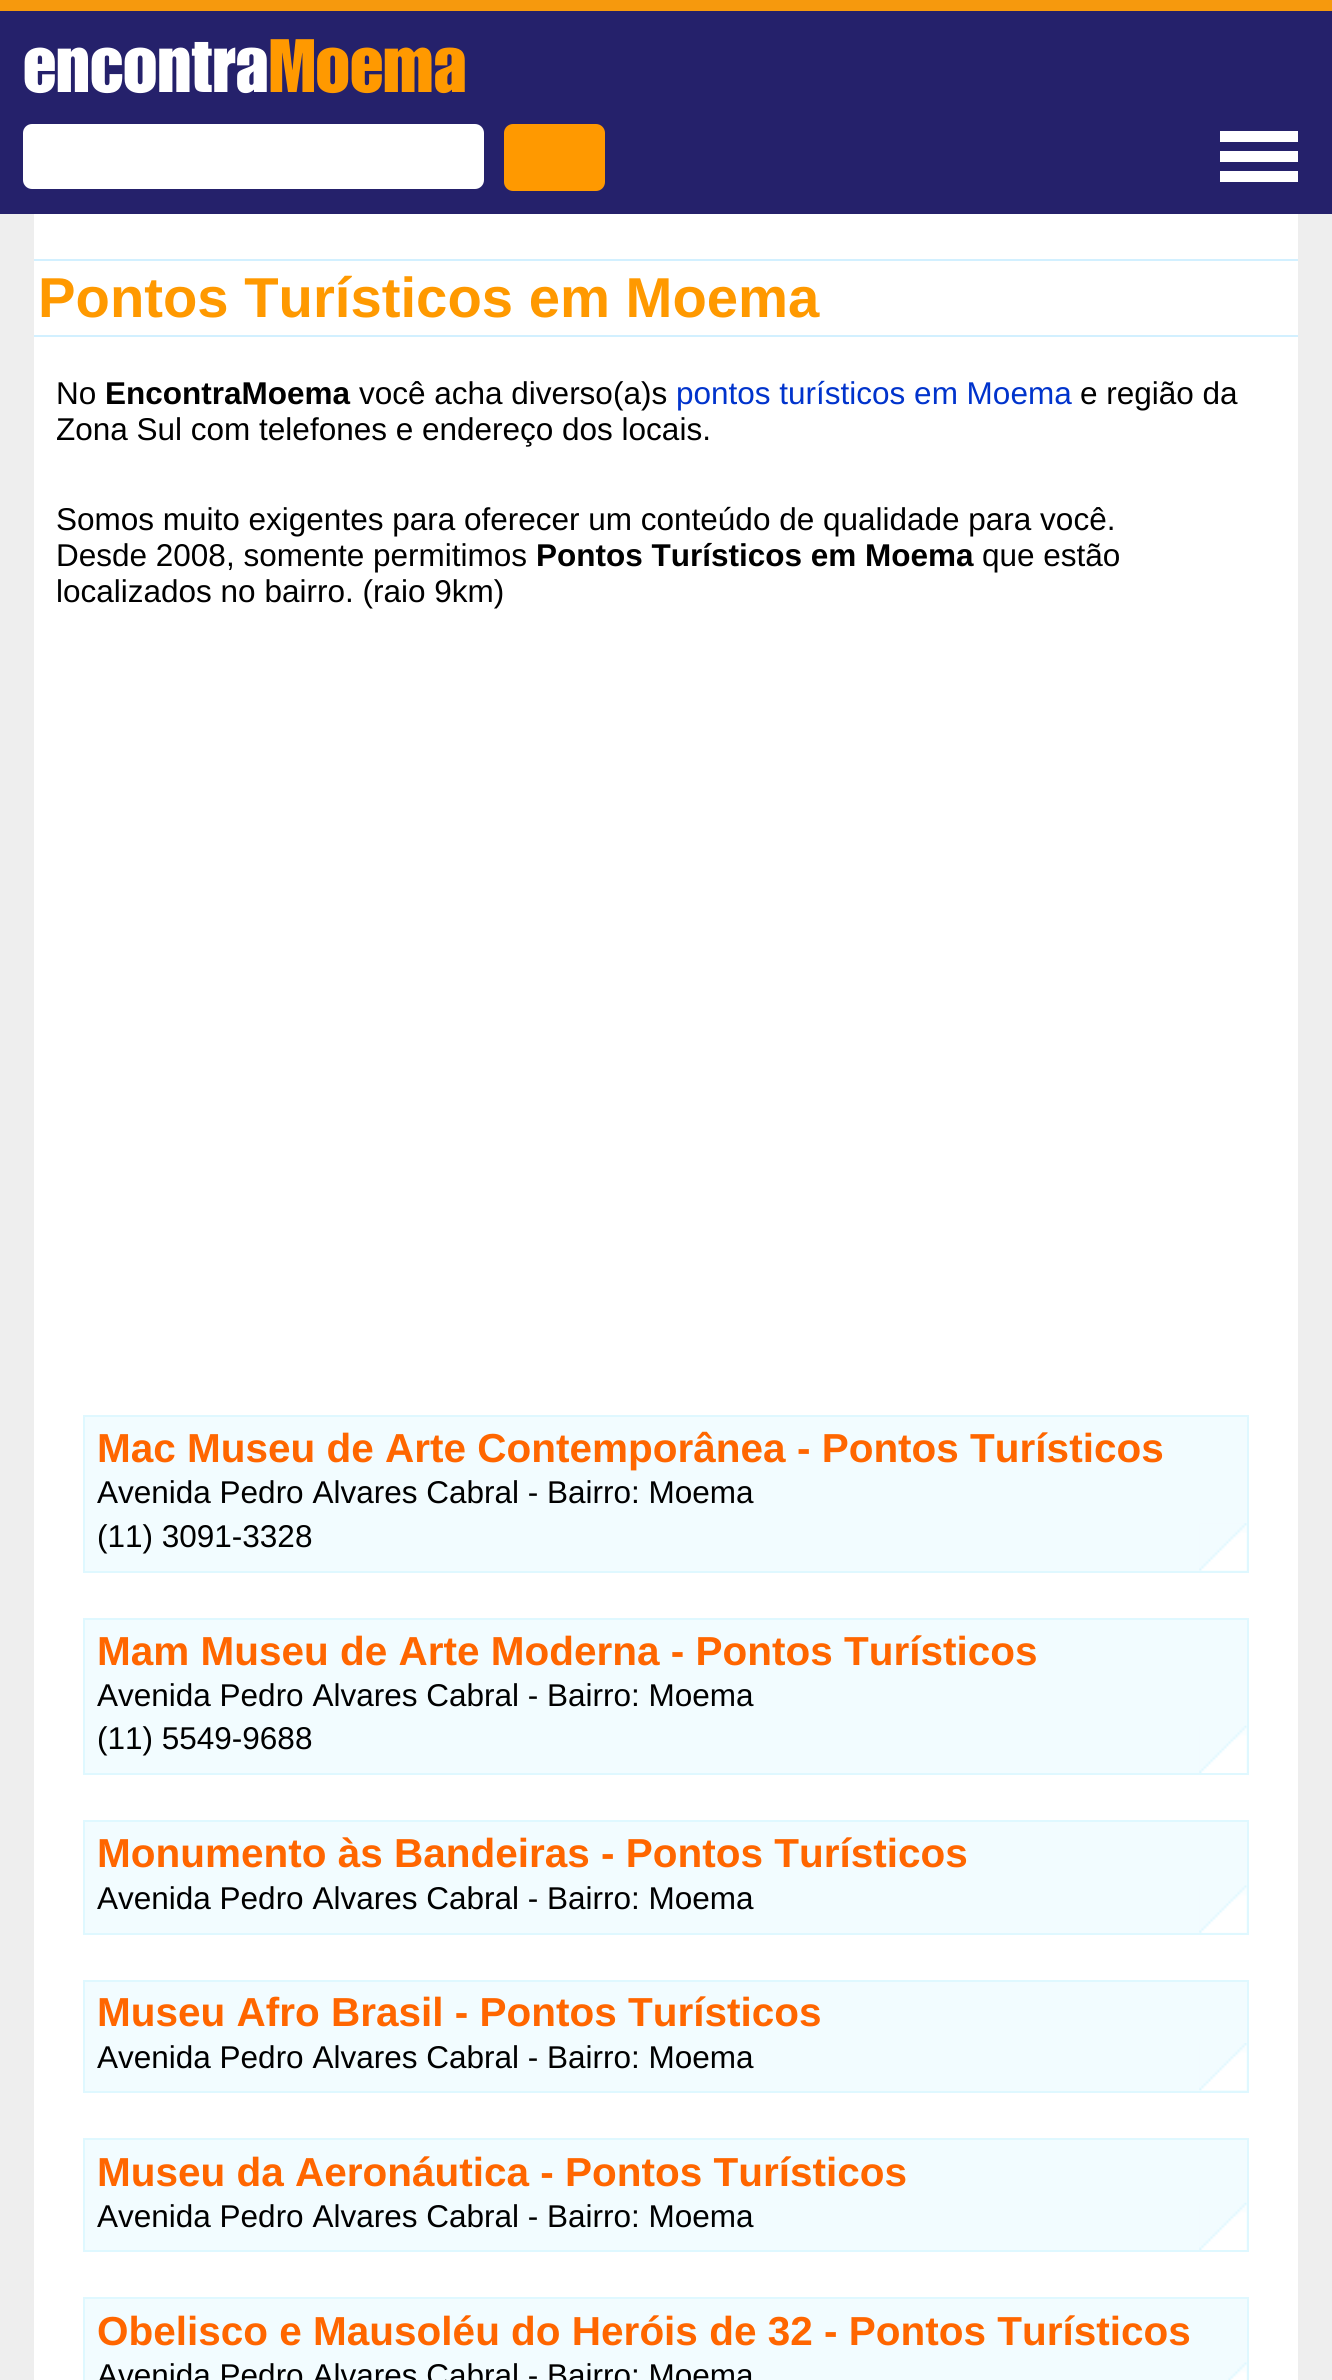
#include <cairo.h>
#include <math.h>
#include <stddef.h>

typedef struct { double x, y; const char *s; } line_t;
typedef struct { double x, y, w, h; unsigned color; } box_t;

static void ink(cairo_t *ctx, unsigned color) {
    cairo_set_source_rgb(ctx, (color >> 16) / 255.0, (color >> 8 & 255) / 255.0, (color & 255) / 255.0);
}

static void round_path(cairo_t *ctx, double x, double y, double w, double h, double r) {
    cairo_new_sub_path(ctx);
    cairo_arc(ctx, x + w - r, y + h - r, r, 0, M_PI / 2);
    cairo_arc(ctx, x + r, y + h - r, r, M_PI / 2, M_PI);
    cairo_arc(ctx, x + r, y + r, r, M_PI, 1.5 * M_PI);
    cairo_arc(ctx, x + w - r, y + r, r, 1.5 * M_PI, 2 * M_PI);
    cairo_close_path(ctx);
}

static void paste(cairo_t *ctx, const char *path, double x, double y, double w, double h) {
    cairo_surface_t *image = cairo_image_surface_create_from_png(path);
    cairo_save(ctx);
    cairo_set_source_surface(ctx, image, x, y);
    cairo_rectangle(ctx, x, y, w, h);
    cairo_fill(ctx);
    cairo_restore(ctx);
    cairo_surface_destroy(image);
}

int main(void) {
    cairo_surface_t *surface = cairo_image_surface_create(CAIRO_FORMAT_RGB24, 1332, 2380);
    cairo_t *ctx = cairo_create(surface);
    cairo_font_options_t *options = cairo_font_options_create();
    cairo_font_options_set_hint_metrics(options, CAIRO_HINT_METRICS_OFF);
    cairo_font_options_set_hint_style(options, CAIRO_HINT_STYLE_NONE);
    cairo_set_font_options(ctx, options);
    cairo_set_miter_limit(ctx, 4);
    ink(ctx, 0xEEEEEE);
    cairo_paint(ctx);
    ink(ctx, 0x25216B);
    cairo_rectangle(ctx, 0, 11, 1332, 203);
    cairo_fill(ctx);
    ink(ctx, 0xF6990D);
    cairo_rectangle(ctx, 0, 0, 1332, 11);
    cairo_fill(ctx);
    cairo_select_font_face(ctx, "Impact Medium", CAIRO_FONT_SLANT_NORMAL, CAIRO_FONT_WEIGHT_NORMAL);
    cairo_set_font_size(ctx, 74);
    ink(ctx, 0xFFFFFF);
    cairo_move_to(ctx, 23, 92);
    cairo_show_text(ctx, "encontra");
    ink(ctx, 0xFF9900);
    cairo_move_to(ctx, 269, 92);
    cairo_show_text(ctx, "Moema");
    ink(ctx, 0xFFFFFF);
    round_path(ctx, 23, 124, 461, 65, 9);
    cairo_fill(ctx);
    ink(ctx, 0xFF9900);
    round_path(ctx, 504, 124, 101, 67, 9);
    cairo_fill(ctx);
    {
        static const box_t items[] = {
            {1220, 131, 78, 11, 0xFFFFFF},
            {1220, 151, 78, 11, 0xFFFFFF},
            {1220, 171, 78, 11, 0xFFFFFF},
            {34, 214, 1264, 2166, 0xFFFFFF},
            {34, 259, 1264, 2, 0xD2F0FF},
            {34, 335, 1264, 2, 0xD2F0FF},
        };
        for (size_t i = 0; i < sizeof items / sizeof *items; i++) {
            ink(ctx, items[i].color);
            cairo_rectangle(ctx, items[i].x, items[i].y, items[i].w, items[i].h);
            cairo_fill(ctx);
        }
    }
    cairo_select_font_face(ctx, "Liberation Sans", CAIRO_FONT_SLANT_NORMAL, CAIRO_FONT_WEIGHT_BOLD);
    cairo_set_font_size(ctx, 56.25);
    ink(ctx, 0xFF9900);
    cairo_move_to(ctx, 38, 317);
    cairo_show_text(ctx, "Pontos Turísticos em Moema");
    cairo_select_font_face(ctx, "Liberation Sans", CAIRO_FONT_SLANT_NORMAL, CAIRO_FONT_WEIGHT_NORMAL);
    cairo_set_font_size(ctx, 31.5);
    ink(ctx, 0x000000);
    cairo_move_to(ctx, 56, 404);
    cairo_show_text(ctx, "No");
    cairo_select_font_face(ctx, "Liberation Sans", CAIRO_FONT_SLANT_NORMAL, CAIRO_FONT_WEIGHT_BOLD);
    cairo_move_to(ctx, 105, 404);
    cairo_show_text(ctx, "EncontraMoema");
    cairo_select_font_face(ctx, "Liberation Sans", CAIRO_FONT_SLANT_NORMAL, CAIRO_FONT_WEIGHT_NORMAL);
    cairo_move_to(ctx, 359, 404);
    cairo_show_text(ctx, "você acha diverso(a)s");
    ink(ctx, 0x0033CC);
    cairo_move_to(ctx, 676, 404);
    cairo_show_text(ctx, "pontos turísticos em Moema");
    ink(ctx, 0x000000);
    {
        static const line_t items[] = {
            {1080, 404, "e região da"},
            {56, 440, "Zona Sul com telefones e endereço dos locais."},
            {56, 530, "Somos muito exigentes para oferecer um conteúdo de qualidade para você."},
            {56, 566, "Desde 2008, somente permitimos"},
        };
        for (size_t i = 0; i < sizeof items / sizeof *items; i++) {
            cairo_move_to(ctx, items[i].x, items[i].y);
            cairo_show_text(ctx, items[i].s);
        }
    }
    cairo_select_font_face(ctx, "Liberation Sans", CAIRO_FONT_SLANT_NORMAL, CAIRO_FONT_WEIGHT_BOLD);
    cairo_move_to(ctx, 536, 566);
    cairo_show_text(ctx, "Pontos Turísticos em Moema");
    cairo_select_font_face(ctx, "Liberation Sans", CAIRO_FONT_SLANT_NORMAL, CAIRO_FONT_WEIGHT_NORMAL);
    cairo_move_to(ctx, 982, 566);
    cairo_show_text(ctx, "que estão");
    cairo_move_to(ctx, 56, 602);
    cairo_show_text(ctx, "localizados no bairro. (raio 9km)");
    ink(ctx, 0xF2FCFF);
    cairo_rectangle(ctx, 85, 1417, 1162, 154);
    cairo_fill(ctx);
    paste(ctx, "media/1.png", 1199, 1523, 48, 48);
    cairo_rectangle(ctx, 84, 1416, 1164, 156);
    ink(ctx, 0xDFF8FF);
    cairo_stroke(ctx);
    cairo_select_font_face(ctx, "Liberation Sans", CAIRO_FONT_SLANT_NORMAL, CAIRO_FONT_WEIGHT_BOLD);
    cairo_set_font_size(ctx, 40.5);
    ink(ctx, 0xFF6600);
    cairo_move_to(ctx, 97, 1462);
    cairo_show_text(ctx, "Mac Museu de Arte Contemporânea - Pontos Turísticos");
    cairo_select_font_face(ctx, "Liberation Sans", CAIRO_FONT_SLANT_NORMAL, CAIRO_FONT_WEIGHT_NORMAL);
    cairo_set_font_size(ctx, 31.5);
    ink(ctx, 0x000000);
    cairo_move_to(ctx, 97, 1503);
    cairo_show_text(ctx, "Avenida Pedro Alvares Cabral - Bairro: Moema");
    cairo_move_to(ctx, 97, 1547);
    cairo_show_text(ctx, "(11) 3091-3328");
    ink(ctx, 0xF2FCFF);
    cairo_rectangle(ctx, 85, 1620, 1162, 153);
    cairo_fill(ctx);
    paste(ctx, "media/2.png", 1199, 1725, 48, 48);
    cairo_rectangle(ctx, 84, 1619, 1164, 155);
    ink(ctx, 0xDFF8FF);
    cairo_stroke(ctx);
    cairo_select_font_face(ctx, "Liberation Sans", CAIRO_FONT_SLANT_NORMAL, CAIRO_FONT_WEIGHT_BOLD);
    cairo_set_font_size(ctx, 40.5);
    ink(ctx, 0xFF6600);
    cairo_move_to(ctx, 97, 1665);
    cairo_show_text(ctx, "Mam Museu de Arte Moderna - Pontos Turísticos");
    cairo_select_font_face(ctx, "Liberation Sans", CAIRO_FONT_SLANT_NORMAL, CAIRO_FONT_WEIGHT_NORMAL);
    cairo_set_font_size(ctx, 31.5);
    ink(ctx, 0x000000);
    cairo_move_to(ctx, 97, 1706);
    cairo_show_text(ctx, "Avenida Pedro Alvares Cabral - Bairro: Moema");
    cairo_move_to(ctx, 97, 1749);
    cairo_show_text(ctx, "(11) 5549-9688");
    ink(ctx, 0xF2FCFF);
    cairo_rectangle(ctx, 85, 1822, 1162, 111);
    cairo_fill(ctx);
    paste(ctx, "media/3.png", 1199, 1885, 48, 48);
    cairo_rectangle(ctx, 84, 1821, 1164, 113);
    ink(ctx, 0xDFF8FF);
    cairo_stroke(ctx);
    cairo_select_font_face(ctx, "Liberation Sans", CAIRO_FONT_SLANT_NORMAL, CAIRO_FONT_WEIGHT_BOLD);
    cairo_set_font_size(ctx, 40.5);
    ink(ctx, 0xFF6600);
    cairo_move_to(ctx, 97, 1867);
    cairo_show_text(ctx, "Monumento às Bandeiras - Pontos Turísticos");
    cairo_select_font_face(ctx, "Liberation Sans", CAIRO_FONT_SLANT_NORMAL, CAIRO_FONT_WEIGHT_NORMAL);
    cairo_set_font_size(ctx, 31.5);
    ink(ctx, 0x000000);
    cairo_move_to(ctx, 97, 1909);
    cairo_show_text(ctx, "Avenida Pedro Alvares Cabral - Bairro: Moema");
    ink(ctx, 0xF2FCFF);
    cairo_rectangle(ctx, 85, 1982, 1162, 109);
    cairo_fill(ctx);
    paste(ctx, "media/4.png", 1199, 2043, 48, 48);
    cairo_rectangle(ctx, 84, 1981, 1164, 111);
    ink(ctx, 0xDFF8FF);
    cairo_stroke(ctx);
    cairo_select_font_face(ctx, "Liberation Sans", CAIRO_FONT_SLANT_NORMAL, CAIRO_FONT_WEIGHT_BOLD);
    cairo_set_font_size(ctx, 40.5);
    ink(ctx, 0xFF6600);
    cairo_move_to(ctx, 97, 2026);
    cairo_show_text(ctx, "Museu Afro Brasil - Pontos Turísticos");
    cairo_select_font_face(ctx, "Liberation Sans", CAIRO_FONT_SLANT_NORMAL, CAIRO_FONT_WEIGHT_NORMAL);
    cairo_set_font_size(ctx, 31.5);
    ink(ctx, 0x000000);
    cairo_move_to(ctx, 97, 2068);
    cairo_show_text(ctx, "Avenida Pedro Alvares Cabral - Bairro: Moema");
    ink(ctx, 0xF2FCFF);
    cairo_rectangle(ctx, 85, 2140, 1162, 110);
    cairo_fill(ctx);
    paste(ctx, "media/2.png", 1199, 2202, 48, 48);
    cairo_rectangle(ctx, 84, 2139, 1164, 112);
    ink(ctx, 0xDFF8FF);
    cairo_stroke(ctx);
    cairo_select_font_face(ctx, "Liberation Sans", CAIRO_FONT_SLANT_NORMAL, CAIRO_FONT_WEIGHT_BOLD);
    cairo_set_font_size(ctx, 40.5);
    ink(ctx, 0xFF6600);
    cairo_move_to(ctx, 97, 2186);
    cairo_show_text(ctx, "Museu da Aeronáutica - Pontos Turísticos");
    cairo_select_font_face(ctx, "Liberation Sans", CAIRO_FONT_SLANT_NORMAL, CAIRO_FONT_WEIGHT_NORMAL);
    cairo_set_font_size(ctx, 31.5);
    ink(ctx, 0x000000);
    cairo_move_to(ctx, 97, 2227);
    cairo_show_text(ctx, "Avenida Pedro Alvares Cabral - Bairro: Moema");
    ink(ctx, 0xF2FCFF);
    cairo_rectangle(ctx, 85, 2299, 1162, 81);
    cairo_fill(ctx);
    paste(ctx, "media/5.png", 1228, 2362, 19, 18);
    cairo_rectangle(ctx, 84, 2298, 1164, 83);
    ink(ctx, 0xDFF8FF);
    cairo_stroke(ctx);
    cairo_select_font_face(ctx, "Liberation Sans", CAIRO_FONT_SLANT_NORMAL, CAIRO_FONT_WEIGHT_BOLD);
    cairo_set_font_size(ctx, 40.5);
    ink(ctx, 0xFF6600);
    cairo_move_to(ctx, 97, 2345);
    cairo_show_text(ctx, "Obelisco e Mausoléu do Heróis de 32 - Pontos Turísticos");
    cairo_select_font_face(ctx, "Liberation Sans", CAIRO_FONT_SLANT_NORMAL, CAIRO_FONT_WEIGHT_NORMAL);
    cairo_set_font_size(ctx, 31.5);
    ink(ctx, 0x000000);
    cairo_move_to(ctx, 97, 2386);
    cairo_show_text(ctx, "Avenida Pedro Alvares Cabral - Bairro: Moema");
    cairo_surface_write_to_png(surface, "image.png");
    cairo_font_options_destroy(options);
    cairo_destroy(ctx);
    cairo_surface_destroy(surface);
    return 0;
}
